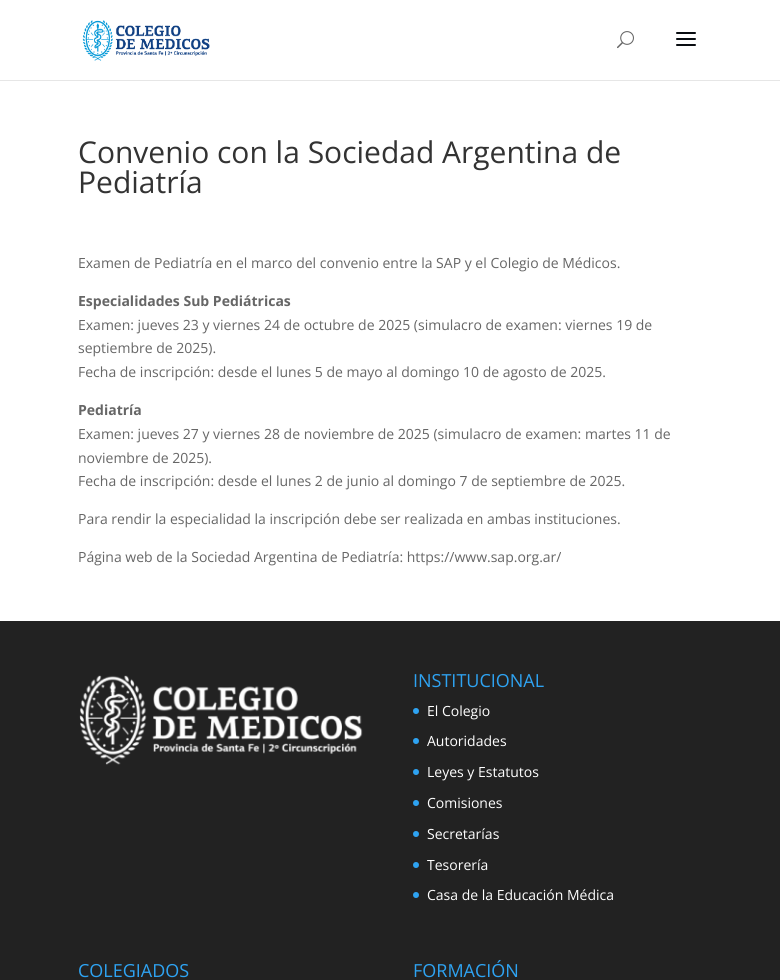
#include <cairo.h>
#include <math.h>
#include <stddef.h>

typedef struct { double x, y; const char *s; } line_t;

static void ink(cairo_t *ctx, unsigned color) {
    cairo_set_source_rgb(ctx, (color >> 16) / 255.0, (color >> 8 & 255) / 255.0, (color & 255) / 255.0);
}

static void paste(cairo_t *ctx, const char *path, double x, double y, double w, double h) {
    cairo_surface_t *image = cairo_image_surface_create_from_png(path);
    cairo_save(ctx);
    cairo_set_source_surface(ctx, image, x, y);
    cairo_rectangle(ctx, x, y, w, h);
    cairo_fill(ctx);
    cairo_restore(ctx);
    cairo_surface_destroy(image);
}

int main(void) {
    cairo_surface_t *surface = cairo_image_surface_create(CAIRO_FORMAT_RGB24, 780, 980);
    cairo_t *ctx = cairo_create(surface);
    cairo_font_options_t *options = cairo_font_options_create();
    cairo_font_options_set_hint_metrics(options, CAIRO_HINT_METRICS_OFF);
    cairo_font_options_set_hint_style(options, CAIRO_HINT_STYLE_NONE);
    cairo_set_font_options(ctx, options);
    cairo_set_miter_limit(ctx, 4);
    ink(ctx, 0xFFFFFF);
    cairo_paint(ctx);
    ink(ctx, 0xE6E6E6);
    cairo_rectangle(ctx, 0, 80, 780, 1);
    cairo_fill(ctx);
    paste(ctx, "media/1.png", 82, 20, 128, 41);
    paste(ctx, "media/2.png", 617, 31, 17, 18);
    paste(ctx, "media/3.png", 676, 32, 20, 14);
    cairo_select_font_face(ctx, "Open Sans", CAIRO_FONT_SLANT_NORMAL, CAIRO_FONT_WEIGHT_NORMAL);
    cairo_set_font_size(ctx, 30);
    ink(ctx, 0x333333);
    cairo_move_to(ctx, 78, 163);
    cairo_show_text(ctx, "Convenio con la Sociedad Argentina de");
    cairo_move_to(ctx, 78, 193);
    cairo_show_text(ctx, "Pediatría");
    cairo_set_font_size(ctx, 14);
    ink(ctx, 0x666666);
    cairo_move_to(ctx, 78, 268);
    cairo_show_text(ctx, "Examen de Pediatría en el marco del convenio entre la SAP y el Colegio de Médicos.");
    cairo_select_font_face(ctx, "Open Sans", CAIRO_FONT_SLANT_NORMAL, CAIRO_FONT_WEIGHT_BOLD);
    cairo_move_to(ctx, 78, 306);
    cairo_show_text(ctx, "Especialidades Sub Pediátricas");
    cairo_select_font_face(ctx, "Open Sans", CAIRO_FONT_SLANT_NORMAL, CAIRO_FONT_WEIGHT_NORMAL);
    {
        static const line_t items[] = {
            {78, 330, "Examen: jueves 23 y viernes 24 de octubre de 2025 (simulacro de examen: viernes 19 de"},
            {78, 353, "septiembre de 2025)."},
            {78, 377, "Fecha de inscripción: desde el lunes 5 de mayo al domingo 10 de agosto de 2025."},
        };
        for (size_t i = 0; i < sizeof items / sizeof *items; i++) {
            cairo_move_to(ctx, items[i].x, items[i].y);
            cairo_show_text(ctx, items[i].s);
        }
    }
    cairo_select_font_face(ctx, "Open Sans", CAIRO_FONT_SLANT_NORMAL, CAIRO_FONT_WEIGHT_BOLD);
    cairo_move_to(ctx, 78, 415);
    cairo_show_text(ctx, "Pediatría");
    cairo_select_font_face(ctx, "Open Sans", CAIRO_FONT_SLANT_NORMAL, CAIRO_FONT_WEIGHT_NORMAL);
    {
        static const line_t items[] = {
            {78, 439, "Examen: jueves 27 y viernes 28 de noviembre de 2025 (simulacro de examen: martes 11 de"},
            {78, 463, "noviembre de 2025)."},
            {78, 486, "Fecha de inscripción: desde el lunes 2 de junio al domingo 7 de septiembre de 2025."},
            {78, 524, "Para rendir la especialidad la inscripción debe ser realizada en ambas instituciones."},
            {78, 562, "Página web de la Sociedad Argentina de Pediatría: https://www.sap.org.ar/"},
        };
        for (size_t i = 0; i < sizeof items / sizeof *items; i++) {
            cairo_move_to(ctx, items[i].x, items[i].y);
            cairo_show_text(ctx, items[i].s);
        }
    }
    ink(ctx, 0x222222);
    cairo_rectangle(ctx, 0, 621, 780, 359);
    cairo_fill(ctx);
    paste(ctx, "media/4.png", 79, 675, 284, 90);
    cairo_set_font_size(ctx, 18);
    ink(ctx, 0x2EA3F2);
    cairo_move_to(ctx, 413, 687);
    cairo_show_text(ctx, "INSTITUCIONAL");
    cairo_new_path(ctx);
    cairo_arc(ctx, 416, 711, 3, 0, 2 * M_PI);
    cairo_fill(ctx);
    cairo_set_font_size(ctx, 14);
    ink(ctx, 0xFFFFFF);
    cairo_move_to(ctx, 427, 716);
    cairo_show_text(ctx, "El Colegio");
    ink(ctx, 0x2EA3F2);
    cairo_new_path(ctx);
    cairo_arc(ctx, 416, 741, 3, 0, 2 * M_PI);
    cairo_fill(ctx);
    ink(ctx, 0xFFFFFF);
    cairo_move_to(ctx, 427, 746);
    cairo_show_text(ctx, "Autoridades");
    ink(ctx, 0x2EA3F2);
    cairo_new_path(ctx);
    cairo_arc(ctx, 416, 772, 3, 0, 2 * M_PI);
    cairo_fill(ctx);
    ink(ctx, 0xFFFFFF);
    cairo_move_to(ctx, 427, 777);
    cairo_show_text(ctx, "Leyes y Estatutos");
    ink(ctx, 0x2EA3F2);
    cairo_new_path(ctx);
    cairo_arc(ctx, 416, 803, 3, 0, 2 * M_PI);
    cairo_fill(ctx);
    ink(ctx, 0xFFFFFF);
    cairo_move_to(ctx, 427, 808);
    cairo_show_text(ctx, "Comisiones");
    ink(ctx, 0x2EA3F2);
    cairo_new_path(ctx);
    cairo_arc(ctx, 416, 834, 3, 0, 2 * M_PI);
    cairo_fill(ctx);
    ink(ctx, 0xFFFFFF);
    cairo_move_to(ctx, 427, 839);
    cairo_show_text(ctx, "Secretarías");
    ink(ctx, 0x2EA3F2);
    cairo_new_path(ctx);
    cairo_arc(ctx, 416, 865, 3, 0, 2 * M_PI);
    cairo_fill(ctx);
    ink(ctx, 0xFFFFFF);
    cairo_move_to(ctx, 427, 870);
    cairo_show_text(ctx, "Tesorería");
    ink(ctx, 0x2EA3F2);
    cairo_new_path(ctx);
    cairo_arc(ctx, 416, 895, 3, 0, 2 * M_PI);
    cairo_fill(ctx);
    ink(ctx, 0xFFFFFF);
    cairo_move_to(ctx, 427, 900);
    cairo_show_text(ctx, "Casa de la Educación Médica");
    cairo_set_font_size(ctx, 18);
    ink(ctx, 0x2EA3F2);
    cairo_move_to(ctx, 78, 977);
    cairo_show_text(ctx, "COLEGIADOS");
    cairo_move_to(ctx, 413, 977);
    cairo_show_text(ctx, "FORMACIÓN");
    cairo_surface_write_to_png(surface, "image.png");
    cairo_font_options_destroy(options);
    cairo_destroy(ctx);
    cairo_surface_destroy(surface);
    return 0;
}
